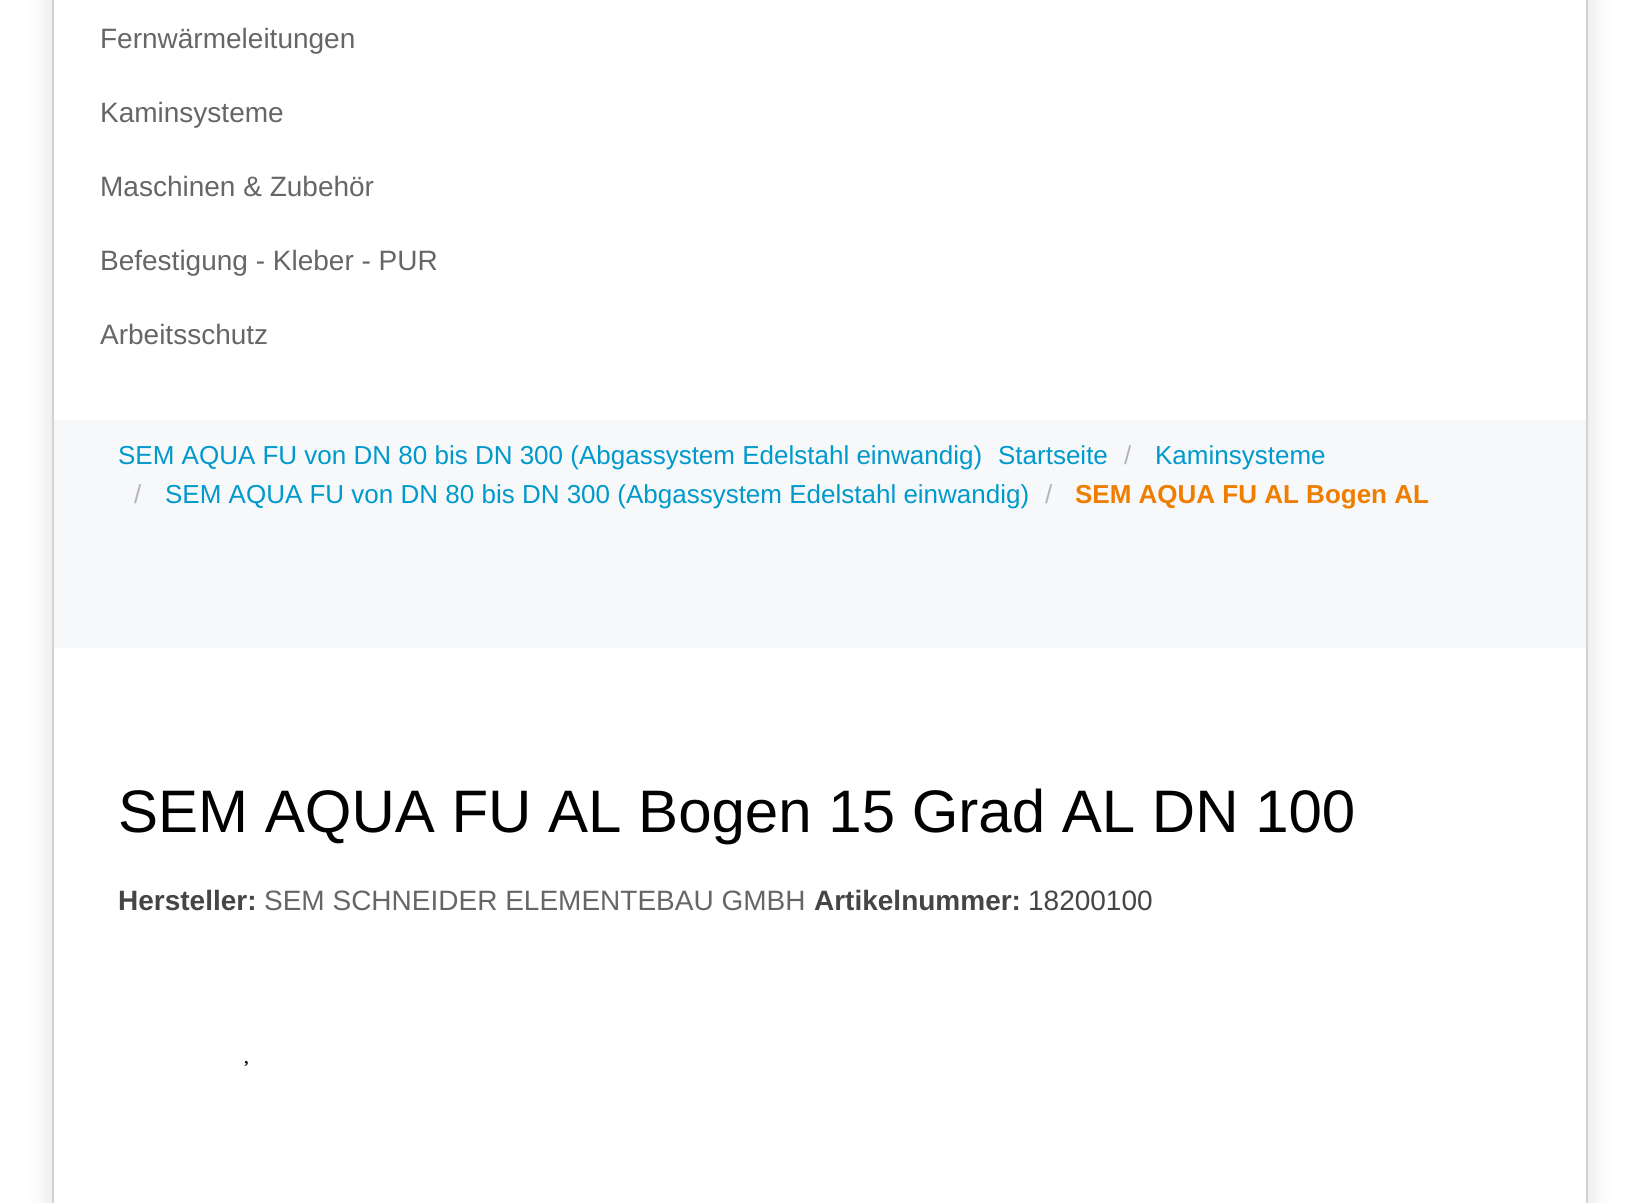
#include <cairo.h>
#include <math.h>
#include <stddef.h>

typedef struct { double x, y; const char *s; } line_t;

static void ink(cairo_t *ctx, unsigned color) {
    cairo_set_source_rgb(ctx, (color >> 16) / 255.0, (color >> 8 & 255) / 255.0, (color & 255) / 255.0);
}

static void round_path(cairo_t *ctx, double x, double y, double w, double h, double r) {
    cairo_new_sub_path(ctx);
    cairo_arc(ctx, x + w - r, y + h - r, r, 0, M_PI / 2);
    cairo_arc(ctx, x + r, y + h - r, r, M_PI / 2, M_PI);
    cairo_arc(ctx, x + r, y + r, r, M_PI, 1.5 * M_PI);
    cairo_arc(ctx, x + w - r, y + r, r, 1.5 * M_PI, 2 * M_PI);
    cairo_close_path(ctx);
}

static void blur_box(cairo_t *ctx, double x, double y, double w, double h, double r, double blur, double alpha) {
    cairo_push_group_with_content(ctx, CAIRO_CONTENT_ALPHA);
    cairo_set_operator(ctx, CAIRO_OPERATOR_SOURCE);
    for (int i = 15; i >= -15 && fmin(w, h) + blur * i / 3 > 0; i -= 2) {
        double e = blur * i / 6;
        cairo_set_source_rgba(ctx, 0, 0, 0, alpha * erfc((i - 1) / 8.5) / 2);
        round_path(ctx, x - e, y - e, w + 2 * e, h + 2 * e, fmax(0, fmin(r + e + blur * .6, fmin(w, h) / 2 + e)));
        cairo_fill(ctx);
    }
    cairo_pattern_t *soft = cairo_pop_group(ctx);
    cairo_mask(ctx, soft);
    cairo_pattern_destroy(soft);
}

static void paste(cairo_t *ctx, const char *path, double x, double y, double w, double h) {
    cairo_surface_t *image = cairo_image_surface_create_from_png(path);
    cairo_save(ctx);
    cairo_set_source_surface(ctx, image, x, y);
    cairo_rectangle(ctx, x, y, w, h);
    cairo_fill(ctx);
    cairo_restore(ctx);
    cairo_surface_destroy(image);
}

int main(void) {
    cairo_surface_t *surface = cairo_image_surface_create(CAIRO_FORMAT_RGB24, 1639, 1203);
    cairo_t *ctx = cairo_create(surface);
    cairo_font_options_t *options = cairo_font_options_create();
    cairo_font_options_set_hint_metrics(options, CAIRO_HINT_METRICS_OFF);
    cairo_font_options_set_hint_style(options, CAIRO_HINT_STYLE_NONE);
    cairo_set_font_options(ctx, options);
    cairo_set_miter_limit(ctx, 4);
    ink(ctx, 0xFFFFFF);
    cairo_paint(ctx);
    cairo_save(ctx);
    cairo_set_fill_rule(ctx, CAIRO_FILL_RULE_EVEN_ODD);
    cairo_new_path(ctx);
    cairo_move_to(ctx, 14, 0);
    cairo_line_to(ctx, 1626, 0);
    cairo_line_to(ctx, 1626, 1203);
    cairo_line_to(ctx, 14, 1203);
    cairo_close_path(ctx);
    cairo_move_to(ctx, 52, -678);
    cairo_line_to(ctx, 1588, -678);
    cairo_line_to(ctx, 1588, 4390);
    cairo_line_to(ctx, 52, 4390);
    cairo_close_path(ctx);
    cairo_clip(ctx);
    ink(ctx, 0x333333);
    blur_box(ctx, 48, -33, 1544, 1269, 0, 11, 0.13);
    cairo_restore(ctx);
    cairo_rectangle(ctx, 53, -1, 1534, 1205);
    ink(ctx, 0xD3D3D3);
    cairo_stroke(ctx);
    cairo_select_font_face(ctx, "Liberation Sans", CAIRO_FONT_SLANT_NORMAL, CAIRO_FONT_WEIGHT_NORMAL);
    cairo_set_font_size(ctx, 28);
    ink(ctx, 0x666666);
    {
        static const line_t items[] = {
            {100, 48, "Fernwärmeleitungen"},
            {100, 122, "Kaminsysteme"},
            {100, 196, "Maschinen & Zubehör"},
            {100, 270, "Befestigung - Kleber - PUR"},
            {100, 344, "Arbeitsschutz"},
        };
        for (size_t i = 0; i < sizeof items / sizeof *items; i++) {
            cairo_move_to(ctx, items[i].x, items[i].y);
            cairo_show_text(ctx, items[i].s);
        }
    }
    ink(ctx, 0xF7F8FA);
    cairo_rectangle(ctx, 54, 420, 1532, 228);
    cairo_fill(ctx);
    cairo_set_font_size(ctx, 26);
    ink(ctx, 0x0099CC);
    cairo_move_to(ctx, 118, 464);
    cairo_show_text(ctx, "SEM AQUA FU von DN 80 bis DN 300 (Abgassystem Edelstahl einwandig)");
    cairo_move_to(ctx, 998, 464);
    cairo_show_text(ctx, "Startseite");
    ink(ctx, 0xB5B5B5);
    cairo_move_to(ctx, 1124, 464);
    cairo_show_text(ctx, "/");
    ink(ctx, 0x0099CC);
    cairo_move_to(ctx, 1155, 464);
    cairo_show_text(ctx, "Kaminsysteme");
    ink(ctx, 0xB5B5B5);
    cairo_move_to(ctx, 134, 503);
    cairo_show_text(ctx, "/");
    ink(ctx, 0x0099CC);
    cairo_move_to(ctx, 165, 503);
    cairo_show_text(ctx, "SEM AQUA FU von DN 80 bis DN 300 (Abgassystem Edelstahl einwandig)");
    ink(ctx, 0xB5B5B5);
    cairo_move_to(ctx, 1045, 503);
    cairo_show_text(ctx, "/");
    cairo_select_font_face(ctx, "Liberation Sans", CAIRO_FONT_SLANT_NORMAL, CAIRO_FONT_WEIGHT_BOLD);
    ink(ctx, 0xEF7D00);
    cairo_move_to(ctx, 1075, 503);
    cairo_show_text(ctx, "SEM AQUA FU AL Bogen AL");
    cairo_select_font_face(ctx, "Liberation Sans", CAIRO_FONT_SLANT_NORMAL, CAIRO_FONT_WEIGHT_NORMAL);
    cairo_set_font_size(ctx, 60);
    ink(ctx, 0x010101);
    cairo_move_to(ctx, 118, 832);
    cairo_show_text(ctx, "SEM AQUA FU AL Bogen 15 Grad AL DN 100");
    cairo_select_font_face(ctx, "Liberation Sans", CAIRO_FONT_SLANT_NORMAL, CAIRO_FONT_WEIGHT_BOLD);
    cairo_set_font_size(ctx, 28);
    ink(ctx, 0x454545);
    cairo_move_to(ctx, 118, 910);
    cairo_show_text(ctx, "Hersteller:");
    cairo_select_font_face(ctx, "Liberation Sans", CAIRO_FONT_SLANT_NORMAL, CAIRO_FONT_WEIGHT_NORMAL);
    ink(ctx, 0x666666);
    cairo_move_to(ctx, 264, 910);
    cairo_show_text(ctx, "SEM SCHNEIDER ELEMENTEBAU GMBH");
    cairo_select_font_face(ctx, "Liberation Sans", CAIRO_FONT_SLANT_NORMAL, CAIRO_FONT_WEIGHT_BOLD);
    ink(ctx, 0x454545);
    cairo_move_to(ctx, 814, 910);
    cairo_show_text(ctx, "Artikelnummer:");
    cairo_select_font_face(ctx, "Liberation Sans", CAIRO_FONT_SLANT_NORMAL, CAIRO_FONT_WEIGHT_NORMAL);
    cairo_move_to(ctx, 1028, 910);
    cairo_show_text(ctx, "18200100");
    paste(ctx, "media/1.png", 244, 1061, 4, 5);
    cairo_surface_write_to_png(surface, "image.png");
    cairo_font_options_destroy(options);
    cairo_destroy(ctx);
    cairo_surface_destroy(surface);
    return 0;
}
